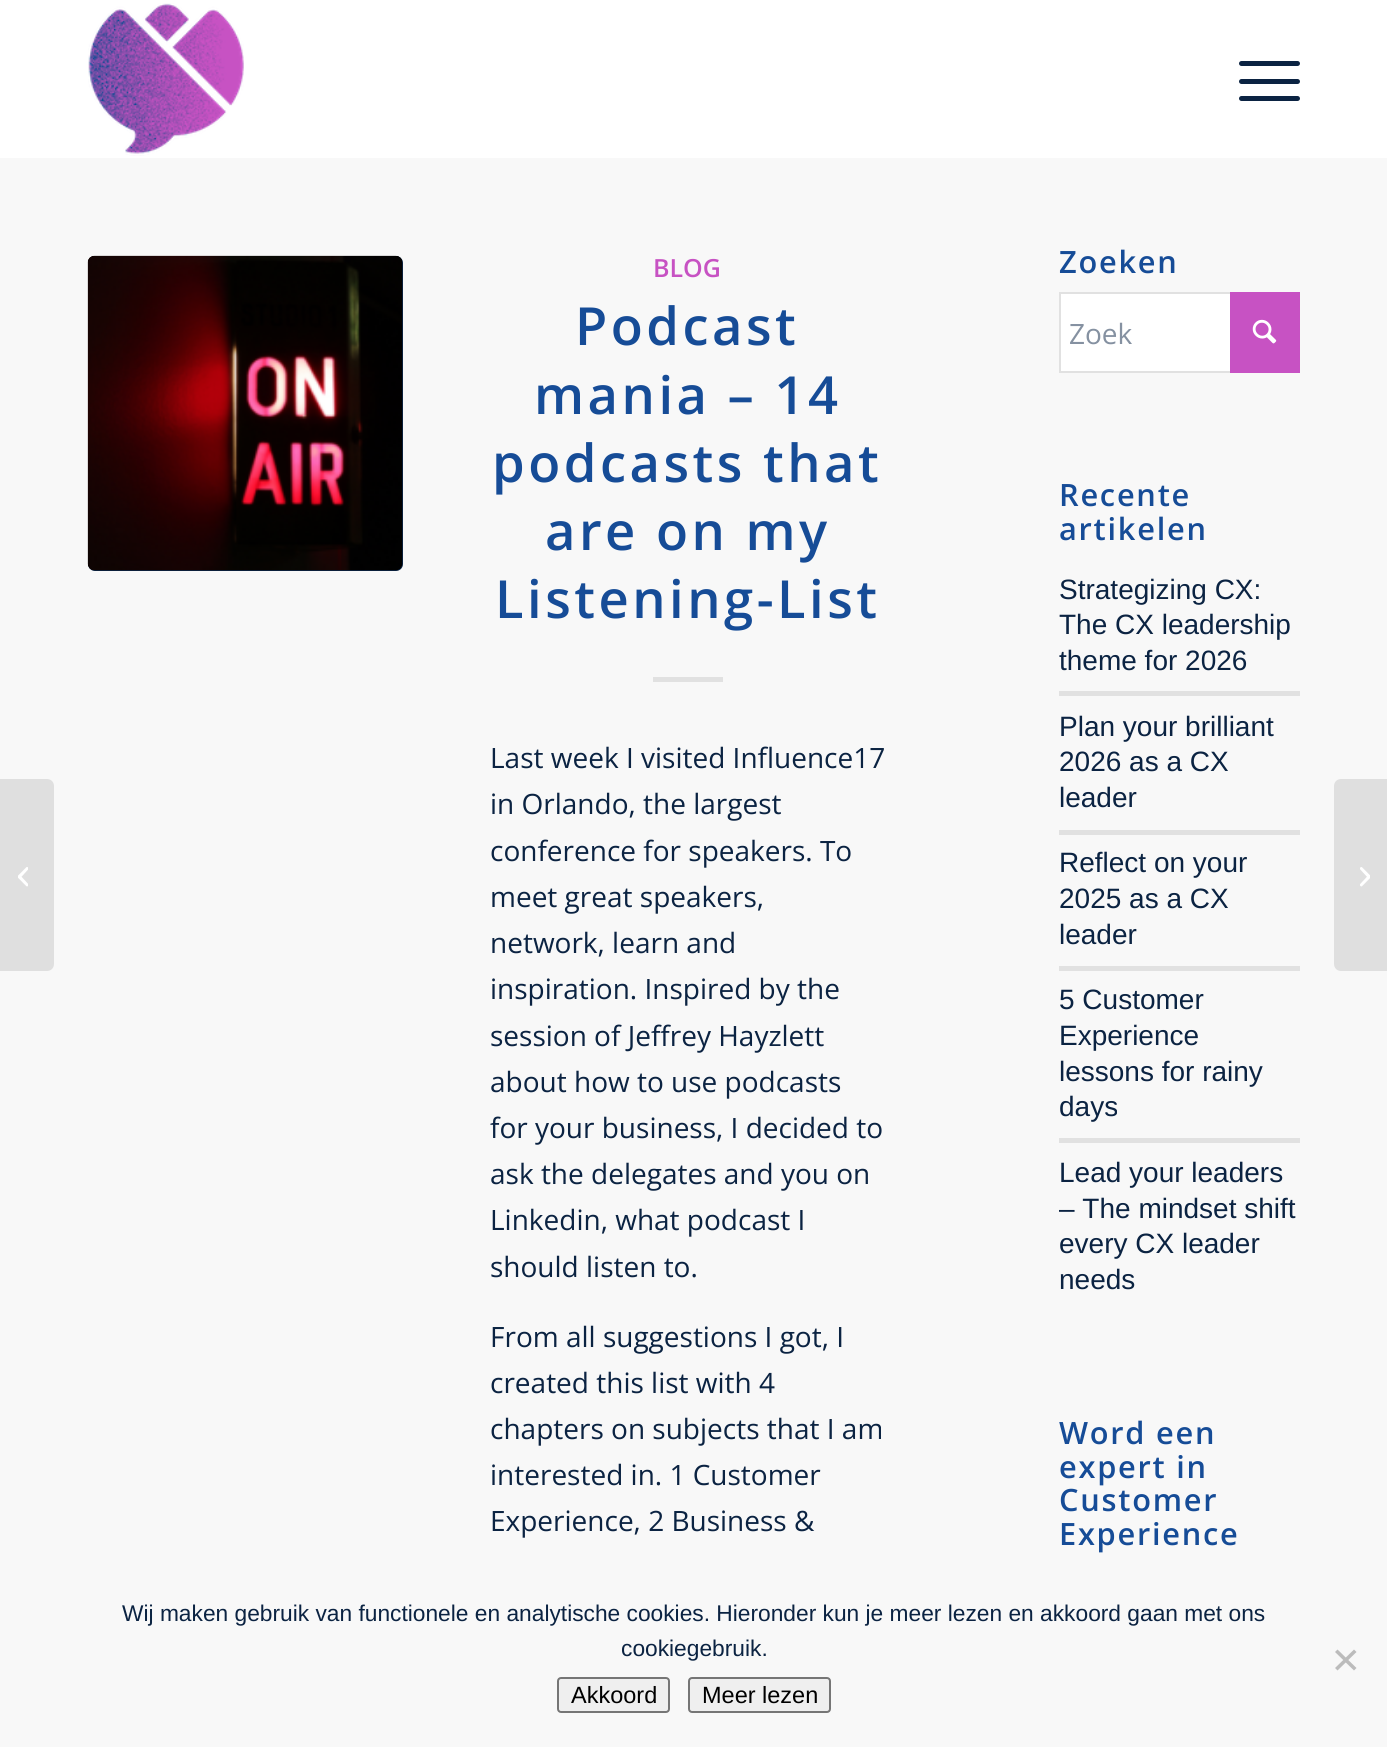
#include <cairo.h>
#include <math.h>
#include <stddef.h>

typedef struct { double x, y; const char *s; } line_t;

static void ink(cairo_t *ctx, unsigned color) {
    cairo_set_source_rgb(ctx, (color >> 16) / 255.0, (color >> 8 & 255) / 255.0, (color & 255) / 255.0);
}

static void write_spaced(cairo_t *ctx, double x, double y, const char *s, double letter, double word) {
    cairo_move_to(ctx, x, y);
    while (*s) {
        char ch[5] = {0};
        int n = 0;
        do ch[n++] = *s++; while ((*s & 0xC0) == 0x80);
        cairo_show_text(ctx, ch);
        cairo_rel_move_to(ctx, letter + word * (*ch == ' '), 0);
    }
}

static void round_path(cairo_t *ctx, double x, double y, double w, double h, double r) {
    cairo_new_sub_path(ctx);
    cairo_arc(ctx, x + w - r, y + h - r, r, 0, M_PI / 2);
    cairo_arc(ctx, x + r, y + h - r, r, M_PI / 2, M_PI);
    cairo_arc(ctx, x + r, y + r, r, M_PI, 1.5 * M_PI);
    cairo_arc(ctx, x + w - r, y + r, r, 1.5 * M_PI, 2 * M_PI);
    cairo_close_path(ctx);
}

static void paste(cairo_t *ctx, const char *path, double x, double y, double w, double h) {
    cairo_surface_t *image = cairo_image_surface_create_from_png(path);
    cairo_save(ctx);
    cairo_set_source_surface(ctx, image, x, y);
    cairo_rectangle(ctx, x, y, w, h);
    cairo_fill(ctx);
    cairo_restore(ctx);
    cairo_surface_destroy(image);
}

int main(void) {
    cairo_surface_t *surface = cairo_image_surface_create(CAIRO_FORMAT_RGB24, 1387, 1747);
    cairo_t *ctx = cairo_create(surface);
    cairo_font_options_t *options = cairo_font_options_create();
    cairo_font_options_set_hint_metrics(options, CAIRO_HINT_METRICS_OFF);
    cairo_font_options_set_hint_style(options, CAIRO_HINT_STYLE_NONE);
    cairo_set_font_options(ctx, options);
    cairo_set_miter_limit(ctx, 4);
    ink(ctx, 0xFFFFFF);
    cairo_paint(ctx);
    paste(ctx, "media/1.png", 88, 3, 156, 153);
    ink(ctx, 0x0B2342);
    round_path(ctx, 1239, 79, 61, 5, 2.5);
    cairo_fill(ctx);
    round_path(ctx, 1239, 61, 61, 5, 2.5);
    cairo_fill(ctx);
    round_path(ctx, 1239, 96, 61, 5, 2.5);
    cairo_fill(ctx);
    ink(ctx, 0xF8F8F8);
    cairo_rectangle(ctx, 0, 158, 1387, 1589);
    cairo_fill(ctx);
    ink(ctx, 0xDFDFDF);
    cairo_new_path(ctx);
    cairo_move_to(ctx, 0, 779);
    cairo_line_to(ctx, 47, 779);
    cairo_curve_to(ctx, 51, 779, 54, 782, 54, 786);
    cairo_line_to(ctx, 54, 964);
    cairo_curve_to(ctx, 54, 968, 51, 971, 47, 971);
    cairo_line_to(ctx, 0, 971);
    cairo_close_path(ctx);
    cairo_fill(ctx);
    paste(ctx, "media/2.png", 18, 867, 10, 20);
    ink(ctx, 0x0B2342);
    round_path(ctx, 88, 256, 315, 315, 7);
    cairo_fill(ctx);
    paste(ctx, "media/3.png", 87, 255, 316, 316);
    cairo_select_font_face(ctx, "Open Sans SemiBold", CAIRO_FONT_SLANT_NORMAL, CAIRO_FONT_WEIGHT_NORMAL);
    cairo_set_font_size(ctx, 25);
    ink(ctx, 0xC752C3);
    cairo_move_to(ctx, 653, 277);
    cairo_show_text(ctx, "BLOG");
    cairo_set_font_size(ctx, 52.5);
    ink(ctx, 0x164C97);
    {
        static const line_t items[] = {
            {575, 345, "Podcast"},
            {534, 414, "mania – 14"},
            {492, 482, "podcasts that"},
            {545, 550, "are on my"},
            {495, 618, "Listening-List"},
        };
        for (size_t i = 0; i < sizeof items / sizeof *items; i++) {
            write_spaced(ctx, items[i].x, items[i].y, items[i].s, 3.5, 0);
        }
    }
    ink(ctx, 0xE1E1E1);
    cairo_rectangle(ctx, 653, 677, 70, 5);
    cairo_fill(ctx);
    cairo_select_font_face(ctx, "Open Sans", CAIRO_FONT_SLANT_NORMAL, CAIRO_FONT_WEIGHT_NORMAL);
    cairo_set_font_size(ctx, 28);
    ink(ctx, 0x0B2342);
    {
        static const line_t items[] = {
            {490, 768, "Last week I visited Influence17"},
            {490, 814, "in Orlando, the largest"},
            {490, 861, "conference for speakers. To"},
            {490, 907, "meet great speakers,"},
            {490, 953, "network, learn and"},
            {490, 999, "inspiration. Inspired by the"},
            {490, 1046, "session of Jeffrey Hayzlett"},
            {490, 1092, "about how to use podcasts"},
            {490, 1138, "for your business, I decided to"},
            {490, 1184, "ask the delegates and you on"},
            {490, 1230, "Linkedin, what podcast I"},
            {490, 1277, "should listen to."},
            {490, 1347, "From all suggestions I got, I"},
            {490, 1393, "created this list with 4"},
            {490, 1439, "chapters on subjects that I am"},
            {490, 1485, "interested in. 1 Customer"},
            {490, 1531, "Experience, 2 Business &"},
        };
        for (size_t i = 0; i < sizeof items / sizeof *items; i++) {
            cairo_move_to(ctx, items[i].x, items[i].y);
            cairo_show_text(ctx, items[i].s);
        }
    }
    cairo_select_font_face(ctx, "Open Sans SemiBold", CAIRO_FONT_SLANT_NORMAL, CAIRO_FONT_WEIGHT_NORMAL);
    cairo_set_font_size(ctx, 30.75);
    ink(ctx, 0x164C97);
    write_spaced(ctx, 1059, 273, "Zoeken", 1.75, 0);
    ink(ctx, 0xFFFFFF);
    cairo_rectangle(ctx, 1061, 294, 169, 77);
    cairo_fill(ctx);
    cairo_rectangle(ctx, 1060, 293, 239, 79);
    ink(ctx, 0xE1E1E1);
    cairo_stroke(ctx);
    ink(ctx, 0xC752C3);
    cairo_rectangle(ctx, 1230, 292, 70, 81);
    cairo_fill(ctx);
    cairo_select_font_face(ctx, "Open Sans", CAIRO_FONT_SLANT_NORMAL, CAIRO_FONT_WEIGHT_NORMAL);
    cairo_set_font_size(ctx, 28);
    ink(ctx, 0x8591A1);
    cairo_move_to(ctx, 1069, 344);
    cairo_show_text(ctx, "Zoek");
    paste(ctx, "media/4.png", 1252, 319, 25, 25);
    cairo_select_font_face(ctx, "Open Sans SemiBold", CAIRO_FONT_SLANT_NORMAL, CAIRO_FONT_WEIGHT_NORMAL);
    cairo_set_font_size(ctx, 30.75);
    ink(ctx, 0x164C97);
    write_spaced(ctx, 1059, 506, "Recente", 1.75, 0);
    write_spaced(ctx, 1059, 540, "artikelen", 1.75, 0);
    cairo_select_font_face(ctx, "Liberation Sans", CAIRO_FONT_SLANT_NORMAL, CAIRO_FONT_WEIGHT_NORMAL);
    cairo_set_font_size(ctx, 28);
    ink(ctx, 0x0B2342);
    {
        static const line_t items[] = {
            {1059, 599, "Strategizing CX:"},
            {1059, 634, "The CX leadership"},
            {1059, 670, "theme for 2026"},
        };
        for (size_t i = 0; i < sizeof items / sizeof *items; i++) {
            cairo_move_to(ctx, items[i].x, items[i].y);
            cairo_show_text(ctx, items[i].s);
        }
    }
    ink(ctx, 0xE1E1E1);
    cairo_rectangle(ctx, 1059, 691, 241, 5);
    cairo_fill(ctx);
    ink(ctx, 0x0B2342);
    {
        static const line_t items[] = {
            {1059, 736, "Plan your brilliant"},
            {1059, 771, "2026 as a CX"},
            {1059, 807, "leader"},
        };
        for (size_t i = 0; i < sizeof items / sizeof *items; i++) {
            cairo_move_to(ctx, items[i].x, items[i].y);
            cairo_show_text(ctx, items[i].s);
        }
    }
    ink(ctx, 0xE1E1E1);
    cairo_rectangle(ctx, 1059, 830, 241, 5);
    cairo_fill(ctx);
    ink(ctx, 0x0B2342);
    {
        static const line_t items[] = {
            {1059, 872, "Reflect on your"},
            {1059, 908, "2025 as a CX"},
            {1059, 944, "leader"},
        };
        for (size_t i = 0; i < sizeof items / sizeof *items; i++) {
            cairo_move_to(ctx, items[i].x, items[i].y);
            cairo_show_text(ctx, items[i].s);
        }
    }
    ink(ctx, 0xE1E1E1);
    cairo_rectangle(ctx, 1059, 966, 241, 5);
    cairo_fill(ctx);
    ink(ctx, 0x0B2342);
    {
        static const line_t items[] = {
            {1059, 1009, "5 Customer"},
            {1059, 1045, "Experience"},
            {1059, 1081, "lessons for rainy"},
            {1059, 1116, "days"},
        };
        for (size_t i = 0; i < sizeof items / sizeof *items; i++) {
            cairo_move_to(ctx, items[i].x, items[i].y);
            cairo_show_text(ctx, items[i].s);
        }
    }
    ink(ctx, 0xE1E1E1);
    cairo_rectangle(ctx, 1059, 1138, 241, 5);
    cairo_fill(ctx);
    ink(ctx, 0x0B2342);
    {
        static const line_t items[] = {
            {1059, 1182, "Lead your leaders"},
            {1059, 1218, "– The mindset shift"},
            {1059, 1253, "every CX leader"},
            {1059, 1289, "needs"},
        };
        for (size_t i = 0; i < sizeof items / sizeof *items; i++) {
            cairo_move_to(ctx, items[i].x, items[i].y);
            cairo_show_text(ctx, items[i].s);
        }
    }
    cairo_select_font_face(ctx, "Open Sans SemiBold", CAIRO_FONT_SLANT_NORMAL, CAIRO_FONT_WEIGHT_NORMAL);
    cairo_set_font_size(ctx, 30.75);
    ink(ctx, 0x164C97);
    {
        static const line_t items[] = {
            {1059, 1444, "Word een"},
            {1059, 1478, "expert in"},
            {1059, 1511, "Customer"},
            {1059, 1545, "Experience"},
        };
        for (size_t i = 0; i < sizeof items / sizeof *items; i++) {
            write_spaced(ctx, items[i].x, items[i].y, items[i].s, 1.75, 0);
        }
    }
    ink(ctx, 0xDFDFDF);
    cairo_new_path(ctx);
    cairo_move_to(ctx, 1341, 779);
    cairo_line_to(ctx, 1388, 779);
    cairo_line_to(ctx, 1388, 971);
    cairo_line_to(ctx, 1341, 971);
    cairo_curve_to(ctx, 1337, 971, 1334, 968, 1334, 964);
    cairo_line_to(ctx, 1334, 786);
    cairo_curve_to(ctx, 1334, 782, 1337, 779, 1341, 779);
    cairo_close_path(ctx);
    cairo_fill(ctx);
    paste(ctx, "media/5.png", 1360, 867, 10, 20);
    cairo_select_font_face(ctx, "Liberation Sans", CAIRO_FONT_SLANT_NORMAL, CAIRO_FONT_WEIGHT_NORMAL);
    cairo_set_font_size(ctx, 22.75);
    ink(ctx, 0x0B2342);
    cairo_move_to(ctx, 122, 1621);
    cairo_show_text(ctx, "Wij maken gebruik van functionele en analytische cookies. Hieronder kun je meer lezen en akkoord gaan met ons");
    cairo_move_to(ctx, 621, 1656);
    cairo_show_text(ctx, "cookiegebruik.");
    ink(ctx, 0xBCBCBC);
    cairo_new_path(ctx);
    cairo_move_to(ctx, 1354, 1649.5);
    cairo_line_to(ctx, 1356.5, 1652);
    cairo_line_to(ctx, 1337.5, 1670.5);
    cairo_line_to(ctx, 1335, 1668);
    cairo_close_path(ctx);
    cairo_fill(ctx);
    cairo_new_path(ctx);
    cairo_move_to(ctx, 1335, 1652);
    cairo_line_to(ctx, 1337.5, 1649.5);
    cairo_line_to(ctx, 1356.5, 1668);
    cairo_line_to(ctx, 1354, 1670.5);
    cairo_close_path(ctx);
    cairo_fill(ctx);
    ink(ctx, 0xEFEFEF);
    round_path(ctx, 558, 1678, 111, 34, 3);
    cairo_fill_preserve(ctx);
    ink(ctx, 0x767676);
    cairo_stroke(ctx);
    cairo_set_font_size(ctx, 23.5);
    ink(ctx, 0x000000);
    cairo_move_to(ctx, 571, 1703);
    cairo_show_text(ctx, "Akkoord");
    ink(ctx, 0xEFEFEF);
    round_path(ctx, 689, 1678, 141, 34, 3);
    cairo_fill_preserve(ctx);
    ink(ctx, 0x767676);
    cairo_stroke(ctx);
    ink(ctx, 0x000000);
    cairo_move_to(ctx, 702, 1703);
    cairo_show_text(ctx, "Meer lezen");
    cairo_surface_write_to_png(surface, "image.png");
    cairo_font_options_destroy(options);
    cairo_destroy(ctx);
    cairo_surface_destroy(surface);
    return 0;
}
